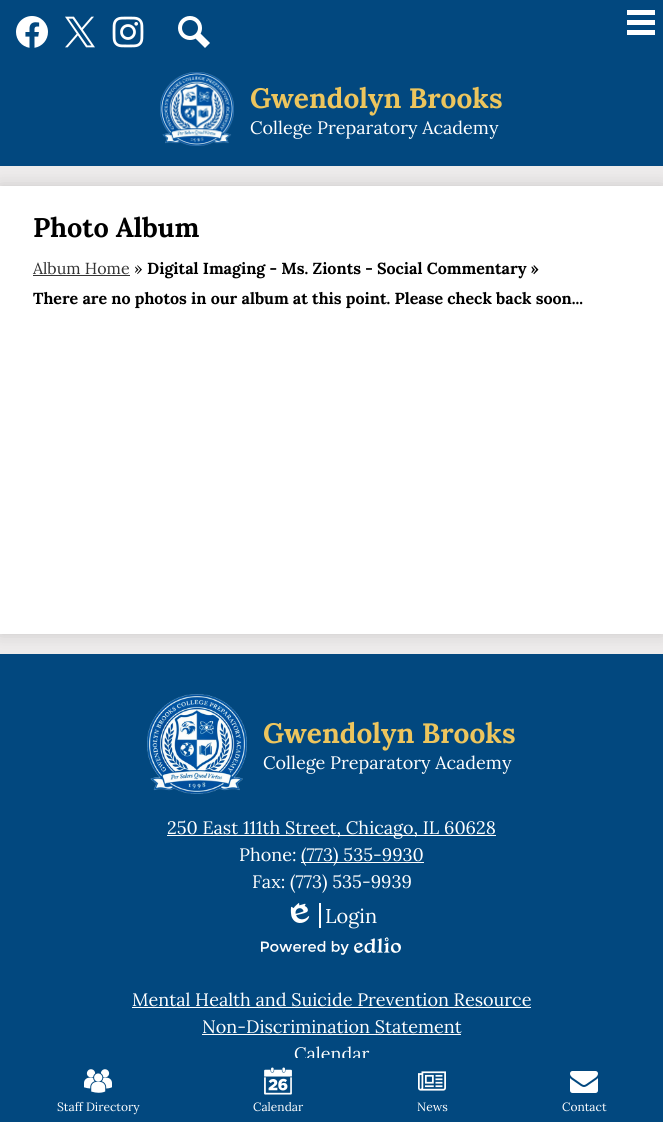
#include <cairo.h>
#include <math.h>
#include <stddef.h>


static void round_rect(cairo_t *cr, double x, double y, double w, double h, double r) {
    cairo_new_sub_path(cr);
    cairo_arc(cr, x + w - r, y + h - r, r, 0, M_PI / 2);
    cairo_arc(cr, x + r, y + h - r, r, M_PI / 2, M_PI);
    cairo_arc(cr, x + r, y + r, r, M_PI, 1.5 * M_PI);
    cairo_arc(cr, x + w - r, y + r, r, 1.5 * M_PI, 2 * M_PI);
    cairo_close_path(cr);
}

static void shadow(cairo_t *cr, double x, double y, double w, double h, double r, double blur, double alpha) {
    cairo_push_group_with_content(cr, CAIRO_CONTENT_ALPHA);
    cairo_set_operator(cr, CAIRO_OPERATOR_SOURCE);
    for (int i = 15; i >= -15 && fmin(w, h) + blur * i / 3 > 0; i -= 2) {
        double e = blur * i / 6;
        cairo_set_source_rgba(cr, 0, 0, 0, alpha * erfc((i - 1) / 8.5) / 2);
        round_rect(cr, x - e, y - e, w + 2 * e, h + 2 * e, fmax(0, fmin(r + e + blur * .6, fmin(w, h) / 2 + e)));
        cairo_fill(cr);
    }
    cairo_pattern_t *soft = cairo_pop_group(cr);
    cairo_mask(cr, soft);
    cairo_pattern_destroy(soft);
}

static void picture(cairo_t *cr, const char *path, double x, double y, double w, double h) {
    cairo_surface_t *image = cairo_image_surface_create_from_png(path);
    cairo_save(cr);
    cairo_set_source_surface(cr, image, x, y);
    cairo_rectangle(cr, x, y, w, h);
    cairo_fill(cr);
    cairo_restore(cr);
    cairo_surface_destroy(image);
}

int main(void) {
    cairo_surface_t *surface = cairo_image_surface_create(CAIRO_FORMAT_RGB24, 663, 1122);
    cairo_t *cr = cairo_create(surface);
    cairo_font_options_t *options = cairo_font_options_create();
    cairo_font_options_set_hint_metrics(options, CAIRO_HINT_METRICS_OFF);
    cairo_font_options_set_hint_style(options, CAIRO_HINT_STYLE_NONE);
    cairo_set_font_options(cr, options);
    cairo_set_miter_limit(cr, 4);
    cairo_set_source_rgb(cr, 0.929, 0.918, 0.918);
    cairo_paint(cr);
    cairo_set_source_rgb(cr, 0.008, 0.282, 0.498);
    cairo_rectangle(cr, 0, 654, 663, 404);
    cairo_fill(cr);
    cairo_set_source_rgb(cr, 0, 0, 0);
    shadow(cr, 0, 186, 663, 448, 0, 8, 0.15);
    cairo_set_source_rgb(cr, 0.008, 0.282, 0.498);
    cairo_rectangle(cr, 0, 0, 663, 166);
    cairo_fill(cr);
    picture(cr, "img1.png", 16, 16, 32, 32);
    picture(cr, "img2.png", 65, 16, 30, 32);
    picture(cr, "img3.png", 112, 16, 32, 32);
    picture(cr, "img4.png", 178, 16, 32, 32);
    cairo_set_source_rgb(cr, 1, 1, 1);
    cairo_rectangle(cr, 627, 10, 28, 5);
    cairo_fill(cr);
    cairo_rectangle(cr, 627, 20, 28, 5);
    cairo_fill(cr);
    cairo_rectangle(cr, 627, 30, 28, 5);
    cairo_fill(cr);
    picture(cr, "img5.png", 160, 72, 74, 74);
    cairo_select_font_face(cr, "Lora", CAIRO_FONT_SLANT_NORMAL, CAIRO_FONT_WEIGHT_BOLD);
    cairo_set_font_size(cr, 28);
    cairo_set_source_rgb(cr, 0.929, 0.773, 0.365);
    cairo_move_to(cr, 250, 108);
    cairo_show_text(cr, "Gwendolyn Brooks");
    cairo_select_font_face(cr, "Lora", CAIRO_FONT_SLANT_NORMAL, CAIRO_FONT_WEIGHT_NORMAL);
    cairo_set_font_size(cr, 18);
    cairo_set_source_rgb(cr, 1, 1, 1);
    cairo_move_to(cr, 250, 134);
    cairo_show_text(cr, "College Preparatory Academy");
    cairo_rectangle(cr, 0, 186, 663, 448);
    cairo_fill(cr);
    cairo_select_font_face(cr, "Lora", CAIRO_FONT_SLANT_NORMAL, CAIRO_FONT_WEIGHT_BOLD);
    cairo_set_font_size(cr, 27);
    cairo_set_source_rgb(cr, 0, 0, 0);
    cairo_move_to(cr, 33, 237);
    cairo_show_text(cr, "Photo Album");
    cairo_select_font_face(cr, "Lora", CAIRO_FONT_SLANT_NORMAL, CAIRO_FONT_WEIGHT_NORMAL);
    cairo_set_font_size(cr, 16);
    cairo_set_source_rgb(cr, 0.2, 0.2, 0.2);
    cairo_move_to(cr, 33, 274);
    cairo_show_text(cr, "Album Home");
    cairo_rectangle(cr, 33, 275, 97, 1);
    cairo_fill(cr);
    cairo_set_source_rgb(cr, 0, 0, 0);
    cairo_move_to(cr, 134, 274);
    cairo_show_text(cr, "»");
    cairo_select_font_face(cr, "Lora", CAIRO_FONT_SLANT_NORMAL, CAIRO_FONT_WEIGHT_BOLD);
    cairo_move_to(cr, 147, 274);
    cairo_show_text(cr, "Digital Imaging - Ms. Zionts - Social Commentary »");
    cairo_move_to(cr, 33, 304);
    cairo_show_text(cr, "There are no photos in our album at this point. Please check back soon...");
    picture(cr, "img6.png", 147, 694, 100, 100);
    cairo_set_font_size(cr, 28);
    cairo_set_source_rgb(cr, 0.929, 0.773, 0.365);
    cairo_move_to(cr, 263, 743);
    cairo_show_text(cr, "Gwendolyn Brooks");
    cairo_select_font_face(cr, "Lora", CAIRO_FONT_SLANT_NORMAL, CAIRO_FONT_WEIGHT_NORMAL);
    cairo_set_font_size(cr, 18);
    cairo_set_source_rgb(cr, 1, 1, 1);
    cairo_move_to(cr, 263, 769);
    cairo_show_text(cr, "College Preparatory Academy");
    cairo_rectangle(cr, 167, 835, 329, 1);
    cairo_fill(cr);
    cairo_move_to(cr, 167, 834);
    cairo_show_text(cr, "250 East 111th Street, Chicago, IL 60628");
    cairo_move_to(cr, 239, 861);
    cairo_show_text(cr, "Phone:");
    cairo_rectangle(cr, 301, 862, 123, 1);
    cairo_fill(cr);
    cairo_move_to(cr, 301, 861);
    cairo_show_text(cr, "(773) 535-9930");
    cairo_move_to(cr, 252, 888);
    cairo_show_text(cr, "Fax: (773) 535-9939");
    cairo_rectangle(cr, 319, 903, 2, 25);
    cairo_fill(cr);
    picture(cr, "img7.png", 290, 903, 20, 20);
    cairo_set_font_size(cr, 20);
    cairo_move_to(cr, 325, 923);
    cairo_show_text(cr, "Login");
    picture(cr, "img8.png", 261, 937, 140, 18);
    cairo_set_font_size(cr, 18);
    cairo_move_to(cr, 132, 1006);
    cairo_show_text(cr, "Mental Health and Suicide Prevention Resource");
    cairo_rectangle(cr, 132, 1007, 399, 1);
    cairo_fill(cr);
    cairo_move_to(cr, 202, 1033);
    cairo_show_text(cr, "Non-Discrimination Statement");
    cairo_rectangle(cr, 202, 1034, 259, 1);
    cairo_fill(cr);
    cairo_move_to(cr, 294, 1060);
    cairo_show_text(cr, "Calendar");
    cairo_set_source_rgb(cr, 0.008, 0.282, 0.498);
    cairo_rectangle(cr, 0, 1058, 663, 64);
    cairo_fill(cr);
    picture(cr, "img9.png", 84, 1069, 28, 24);
    cairo_set_font_size(cr, 12);
    cairo_set_source_rgb(cr, 1, 1, 1);
    cairo_move_to(cr, 57, 1111);
    cairo_show_text(cr, "Staff Directory");
    picture(cr, "img10.png", 264, 1067, 28, 28);
    cairo_move_to(cr, 253, 1111);
    cairo_show_text(cr, "Calendar");
    picture(cr, "img11.png", 418, 1071, 28, 20);
    cairo_move_to(cr, 417, 1111);
    cairo_show_text(cr, "News");
    picture(cr, "img12.png", 570, 1071, 28, 22);
    cairo_move_to(cr, 562, 1111);
    cairo_show_text(cr, "Contact");
    cairo_surface_write_to_png(surface, "page.png");
    cairo_font_options_destroy(options);
    cairo_destroy(cr);
    cairo_surface_destroy(surface);
    return 0;
}
